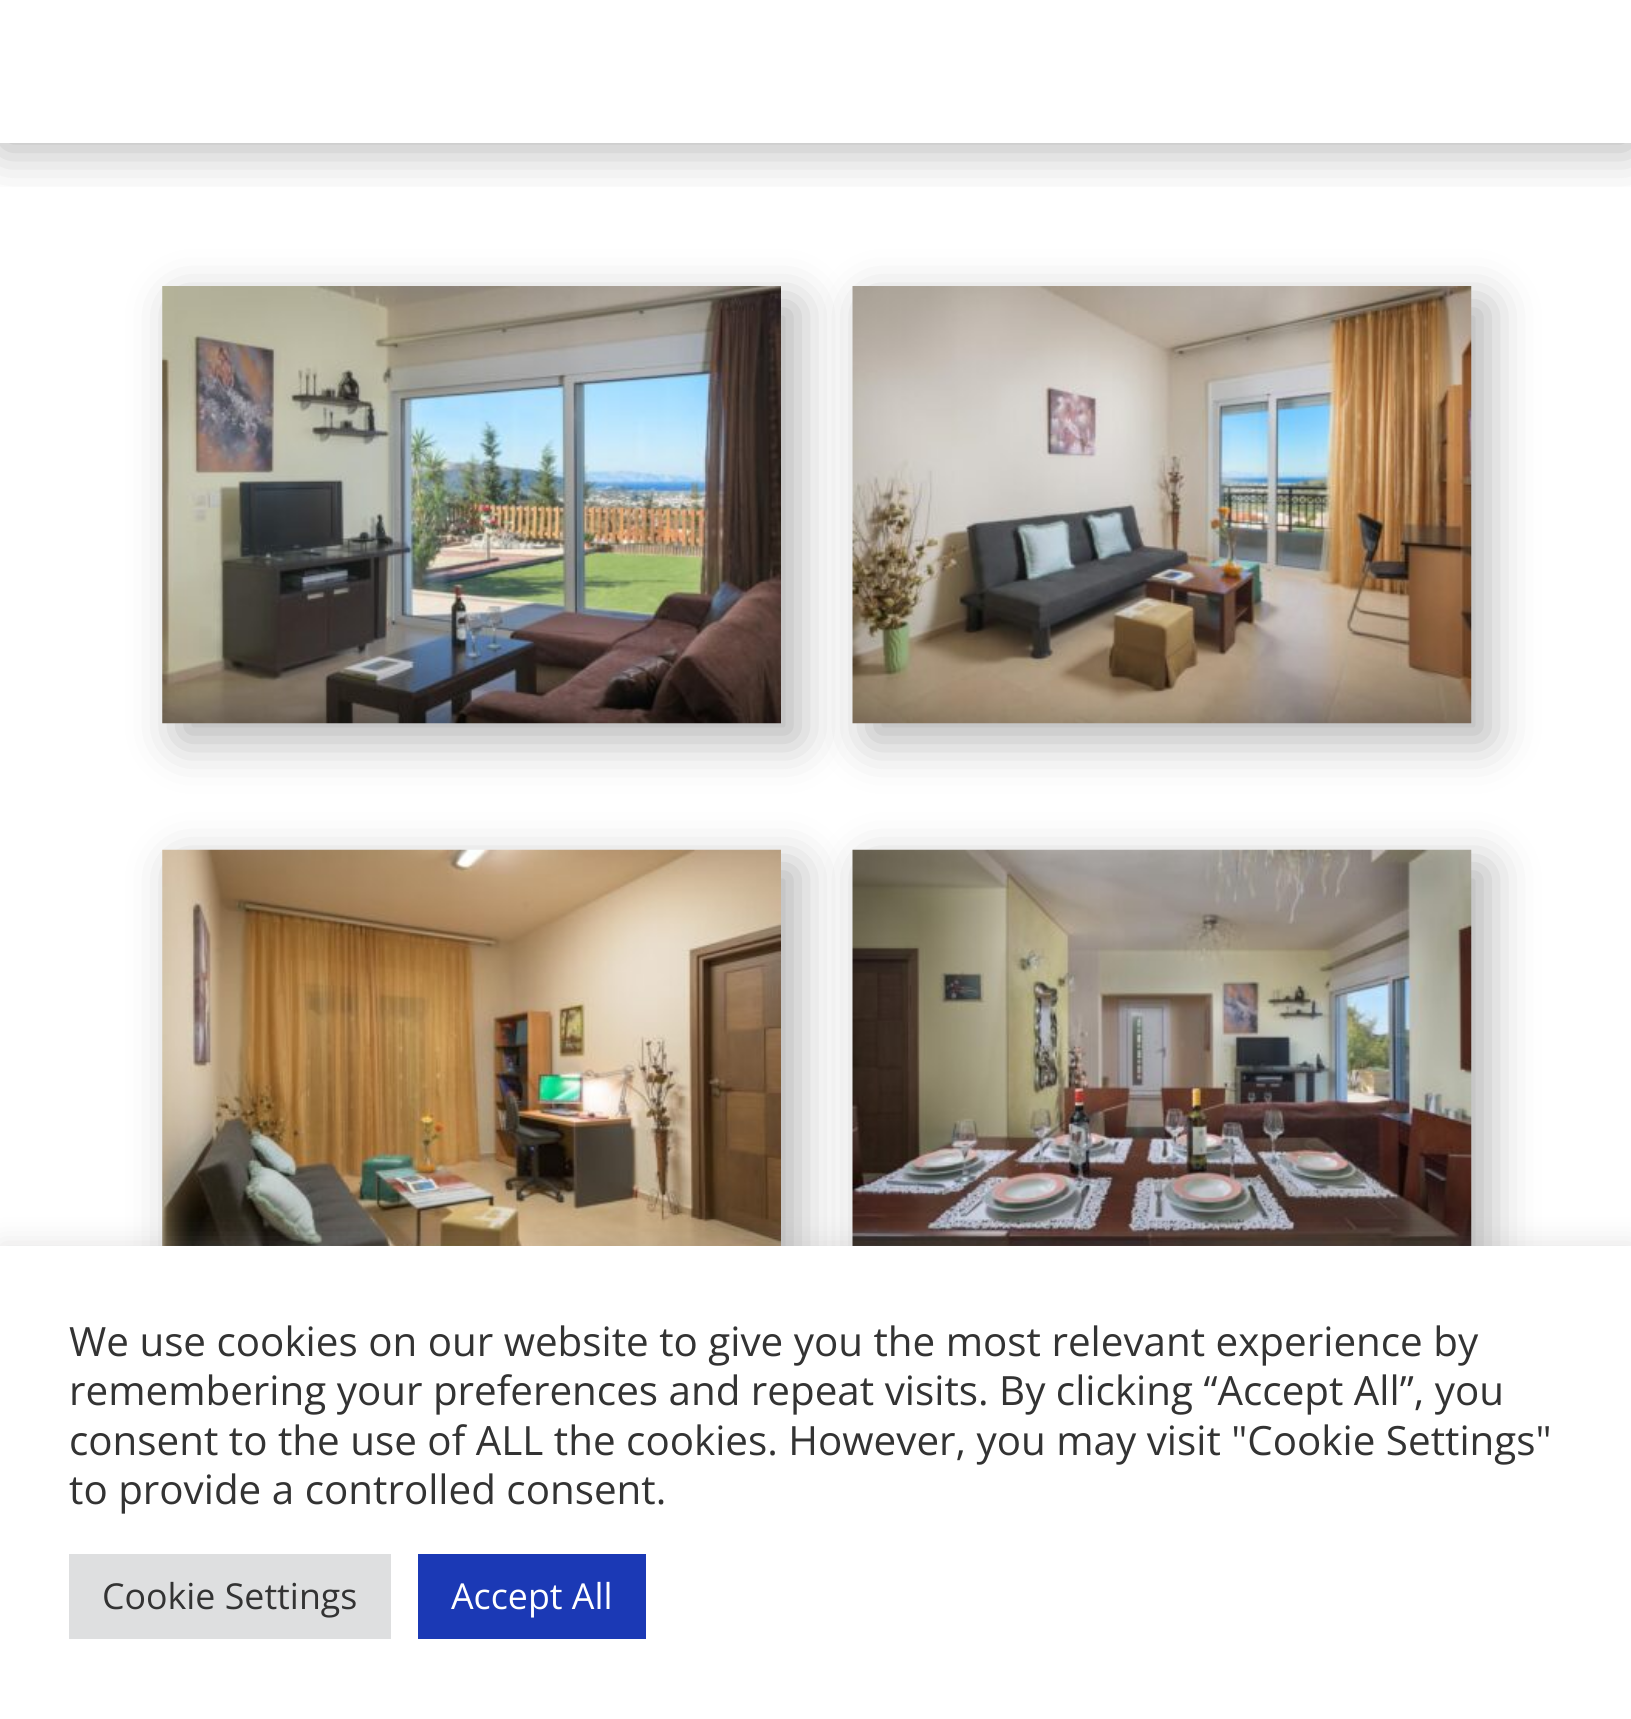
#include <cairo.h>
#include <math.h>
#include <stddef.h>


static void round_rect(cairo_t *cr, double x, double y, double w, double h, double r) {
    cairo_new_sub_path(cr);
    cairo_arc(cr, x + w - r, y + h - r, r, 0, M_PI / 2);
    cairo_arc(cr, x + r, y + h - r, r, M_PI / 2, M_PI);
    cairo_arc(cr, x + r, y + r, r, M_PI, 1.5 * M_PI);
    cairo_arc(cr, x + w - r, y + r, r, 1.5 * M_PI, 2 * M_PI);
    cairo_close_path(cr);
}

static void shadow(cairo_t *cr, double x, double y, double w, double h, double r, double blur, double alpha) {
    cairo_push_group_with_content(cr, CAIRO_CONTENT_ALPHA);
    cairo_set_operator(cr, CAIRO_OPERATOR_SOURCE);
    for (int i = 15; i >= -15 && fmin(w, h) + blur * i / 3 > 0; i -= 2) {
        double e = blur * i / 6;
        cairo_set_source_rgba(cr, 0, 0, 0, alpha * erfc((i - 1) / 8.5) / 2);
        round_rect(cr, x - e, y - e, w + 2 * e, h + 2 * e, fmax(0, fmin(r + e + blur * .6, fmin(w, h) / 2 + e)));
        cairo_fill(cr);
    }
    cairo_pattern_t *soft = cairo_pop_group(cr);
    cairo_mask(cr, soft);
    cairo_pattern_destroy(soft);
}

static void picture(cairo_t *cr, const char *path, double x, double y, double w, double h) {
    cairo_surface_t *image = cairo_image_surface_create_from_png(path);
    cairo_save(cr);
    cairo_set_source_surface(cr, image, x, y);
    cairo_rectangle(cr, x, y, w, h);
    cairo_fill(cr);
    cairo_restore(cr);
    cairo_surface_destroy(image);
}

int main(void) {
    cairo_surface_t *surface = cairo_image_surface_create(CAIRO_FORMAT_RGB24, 1631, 1719);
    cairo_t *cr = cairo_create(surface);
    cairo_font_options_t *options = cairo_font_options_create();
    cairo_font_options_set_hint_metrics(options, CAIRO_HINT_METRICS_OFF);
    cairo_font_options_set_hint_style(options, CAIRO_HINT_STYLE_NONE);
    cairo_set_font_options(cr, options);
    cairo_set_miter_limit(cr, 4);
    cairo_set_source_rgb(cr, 1, 1, 1);
    cairo_paint(cr);
    cairo_save(cr);
    cairo_rectangle(cr, 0, 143, 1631, 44);
    cairo_clip(cr);
    cairo_set_source_rgb(cr, 0, 0, 0);
    shadow(cr, 0, 6, 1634, 143, 0, 25, 0.3);
    cairo_restore(cr);
    cairo_set_source_rgb(cr, 0, 0, 0);
    shadow(cr, 179, 303, 619, 437, 0, 25, 0.3);
    picture(cr, "img1.png", 162, 286, 619, 438);
    shadow(cr, 869, 303, 619, 437, 0, 25, 0.3);
    picture(cr, "img2.png", 852, 286, 620, 438);
    shadow(cr, 179, 866, 619, 438, 0, 25, 0.3);
    picture(cr, "img3.png", 162, 849, 619, 397);
    shadow(cr, 869, 866, 619, 438, 0, 25, 0.3);
    picture(cr, "img4.png", 852, 849, 620, 397);
    cairo_set_source_rgb(cr, 0.675, 0.671, 0.671);
    shadow(cr, 0, 1243, 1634, 476, 0, 14, 0.3);
    cairo_set_source_rgb(cr, 1, 1, 1);
    cairo_rectangle(cr, 0, 1246, 1631, 473);
    cairo_fill(cr);
    cairo_select_font_face(cr, "Open Sans", CAIRO_FONT_SLANT_NORMAL, CAIRO_FONT_WEIGHT_NORMAL);
    cairo_set_font_size(cr, 40.35);
    cairo_set_source_rgb(cr, 0.2, 0.2, 0.2);
    cairo_move_to(cr, 69, 1356);
    cairo_show_text(cr, "We use cookies on our website to give you the most relevant experience by");
    cairo_move_to(cr, 69, 1405);
    cairo_show_text(cr, "remembering your preferences and repeat visits. By clicking “Accept All”, you");
    cairo_move_to(cr, 69, 1455);
    cairo_show_text(cr, "consent to the use of ALL the cookies. However, you may visit \"Cookie Settings\"");
    cairo_move_to(cr, 69, 1504);
    cairo_show_text(cr, "to provide a controlled consent.");
    cairo_set_source_rgb(cr, 0.871, 0.875, 0.878);
    cairo_rectangle(cr, 69, 1554, 322, 85);
    cairo_fill(cr);
    cairo_set_font_size(cr, 35.75);
    cairo_set_source_rgb(cr, 0.2, 0.2, 0.2);
    cairo_move_to(cr, 102, 1609);
    cairo_show_text(cr, "Cookie Settings");
    cairo_set_source_rgb(cr, 0.106, 0.224, 0.71);
    cairo_rectangle(cr, 418, 1554, 228, 85);
    cairo_fill(cr);
    cairo_set_source_rgb(cr, 1, 1, 1);
    cairo_move_to(cr, 451, 1609);
    cairo_show_text(cr, "Accept All");
    cairo_surface_write_to_png(surface, "page.png");
    cairo_font_options_destroy(options);
    cairo_destroy(cr);
    cairo_surface_destroy(surface);
    return 0;
}
